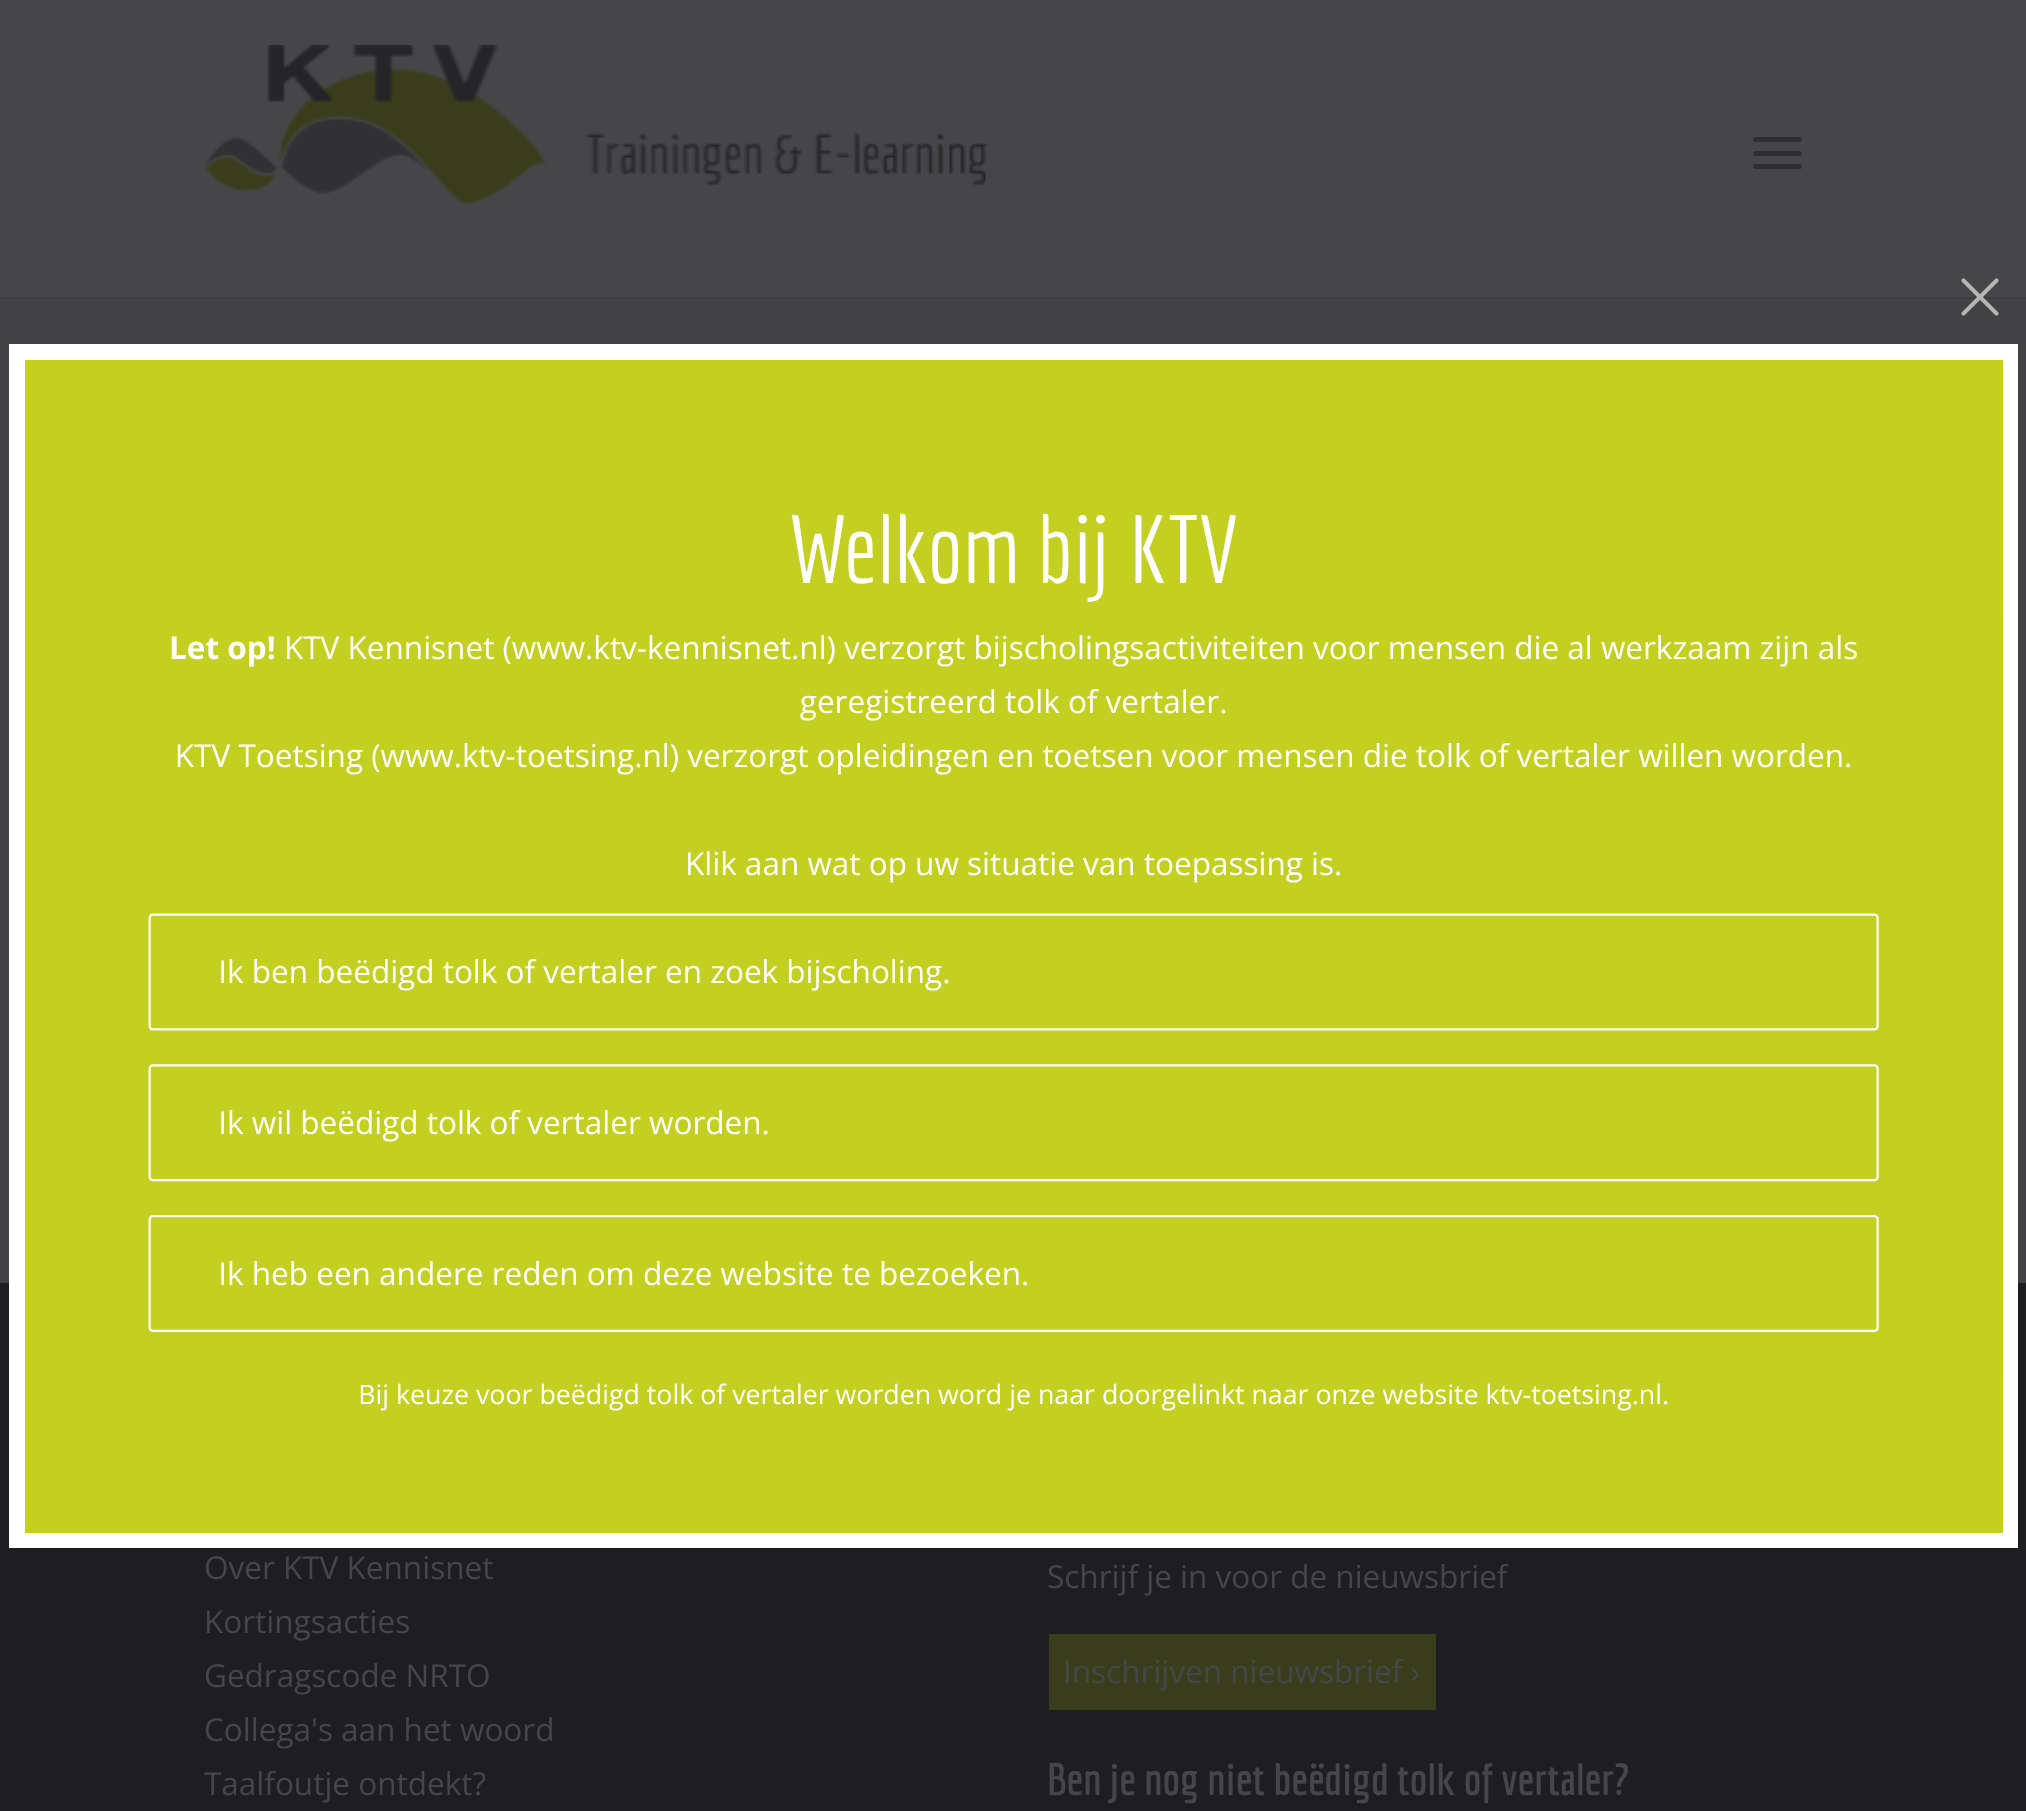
#include <cairo.h>
#include <math.h>
#include <stddef.h>


static void round_rect(cairo_t *cr, double x, double y, double w, double h, double r) {
    cairo_new_sub_path(cr);
    cairo_arc(cr, x + w - r, y + h - r, r, 0, M_PI / 2);
    cairo_arc(cr, x + r, y + h - r, r, M_PI / 2, M_PI);
    cairo_arc(cr, x + r, y + r, r, M_PI, 1.5 * M_PI);
    cairo_arc(cr, x + w - r, y + r, r, 1.5 * M_PI, 2 * M_PI);
    cairo_close_path(cr);
}

static void picture(cairo_t *cr, const char *path, double x, double y, double w, double h) {
    cairo_surface_t *image = cairo_image_surface_create_from_png(path);
    cairo_save(cr);
    cairo_set_source_surface(cr, image, x, y);
    cairo_rectangle(cr, x, y, w, h);
    cairo_fill(cr);
    cairo_restore(cr);
    cairo_surface_destroy(image);
}

int main(void) {
    cairo_surface_t *surface = cairo_image_surface_create(CAIRO_FORMAT_RGB24, 2026, 1811);
    cairo_t *cr = cairo_create(surface);
    cairo_font_options_t *options = cairo_font_options_create();
    cairo_font_options_set_hint_metrics(options, CAIRO_HINT_METRICS_OFF);
    cairo_font_options_set_hint_style(options, CAIRO_HINT_STYLE_NONE);
    cairo_set_font_options(cr, options);
    cairo_set_miter_limit(cr, 4);
    cairo_set_source_rgb(cr, 0.259, 0.259, 0.271);
    cairo_paint(cr);
    cairo_set_source_rgb(cr, 0.275, 0.275, 0.286);
    cairo_rectangle(cr, 0, 0, 2026, 297);
    cairo_fill(cr);
    cairo_set_source_rgb(cr, 0.247, 0.247, 0.255);
    cairo_rectangle(cr, 0, 297, 2026, 2);
    cairo_fill(cr);
    picture(cr, "img1.png", 204, 45, 784, 161);
    cairo_set_source_rgb(cr, 0.18, 0.18, 0.192);
    round_rect(cr, 1753, 137, 49, 5, 2.5);
    cairo_fill(cr);
    round_rect(cr, 1753, 151, 49, 5, 2.5);
    cairo_fill(cr);
    round_rect(cr, 1753, 164, 49, 5, 2.5);
    cairo_fill(cr);
    cairo_set_source_rgb(cr, 0.118, 0.114, 0.129);
    cairo_rectangle(cr, 0, 1283, 2026, 528);
    cairo_fill(cr);
    cairo_set_source_rgb(cr, 1, 1, 1);
    cairo_rectangle(cr, 9, 344, 2009, 1204);
    cairo_fill(cr);
    cairo_new_path(cr);
    cairo_move_to(cr, 1996.5, 313.5);
    cairo_line_to(cr, 1963.5, 280.5);
    cairo_move_to(cr, 1996.5, 280.5);
    cairo_line_to(cr, 1963.5, 313.5);
    cairo_set_source_rgba(cr, 0.859, 0.859, 0.859, 0.75);
    cairo_set_line_width(cr, 4.1);
    cairo_set_line_cap(cr, CAIRO_LINE_CAP_ROUND);
    cairo_set_line_join(cr, CAIRO_LINE_JOIN_ROUND);
    cairo_stroke(cr);
    picture(cr, "img2.png", 25, 360, 1978, 1173);
    cairo_select_font_face(cr, "Open Sans", CAIRO_FONT_SLANT_NORMAL, CAIRO_FONT_WEIGHT_NORMAL);
    cairo_set_font_size(cr, 31.5);
    cairo_set_source_rgb(cr, 0.275, 0.275, 0.286);
    cairo_move_to(cr, 204, 1579);
    cairo_show_text(cr, "Over KTV Kennisnet");
    cairo_move_to(cr, 204, 1633);
    cairo_show_text(cr, "Kortingsacties");
    cairo_move_to(cr, 204, 1687);
    cairo_show_text(cr, "Gedragscode NRTO");
    cairo_move_to(cr, 204, 1741);
    cairo_show_text(cr, "Collega's aan het woord");
    cairo_move_to(cr, 204, 1795);
    cairo_show_text(cr, "Taalfoutje ontdekt?");
    cairo_move_to(cr, 1047, 1588);
    cairo_show_text(cr, "Schrijf je in voor de nieuwsbrief");
    cairo_set_source_rgb(cr, 0.227, 0.239, 0.11);
    cairo_rectangle(cr, 1049, 1634, 387, 76);
    cairo_fill(cr);
    cairo_set_source_rgb(cr, 0.275, 0.275, 0.286);
    cairo_move_to(cr, 1063, 1683);
    cairo_show_text(cr, "Inschrijven nieuwsbrief ›");
    cairo_select_font_face(cr, "Economica", CAIRO_FONT_SLANT_NORMAL, CAIRO_FONT_WEIGHT_BOLD);
    cairo_set_font_size(cr, 44.1);
    cairo_move_to(cr, 1047, 1795);
    cairo_show_text(cr, "Ben je nog niet beëdigd tolk of vertaler?");
    cairo_surface_write_to_png(surface, "page.png");
    cairo_font_options_destroy(options);
    cairo_destroy(cr);
    cairo_surface_destroy(surface);
    return 0;
}
